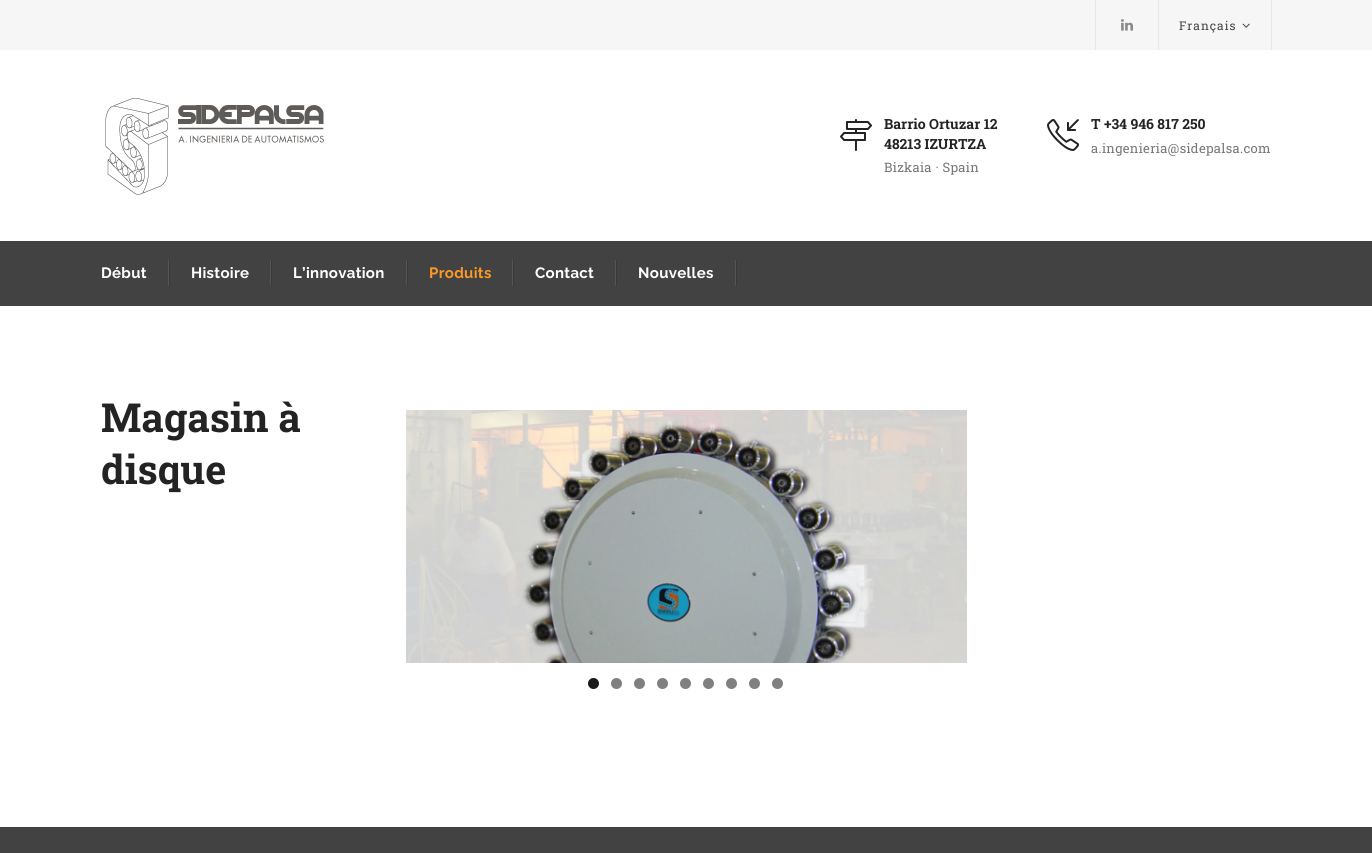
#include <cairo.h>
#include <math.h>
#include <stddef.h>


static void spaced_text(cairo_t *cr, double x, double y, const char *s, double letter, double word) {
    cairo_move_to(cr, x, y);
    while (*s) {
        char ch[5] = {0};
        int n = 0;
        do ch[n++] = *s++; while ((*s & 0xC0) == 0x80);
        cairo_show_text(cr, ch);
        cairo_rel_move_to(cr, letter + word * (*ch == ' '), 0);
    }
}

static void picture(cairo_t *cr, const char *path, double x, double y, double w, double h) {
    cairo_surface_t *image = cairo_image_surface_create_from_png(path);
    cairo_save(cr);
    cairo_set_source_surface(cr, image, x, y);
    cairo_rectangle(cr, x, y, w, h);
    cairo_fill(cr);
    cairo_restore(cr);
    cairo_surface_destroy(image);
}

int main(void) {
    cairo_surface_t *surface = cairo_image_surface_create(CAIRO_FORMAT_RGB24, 1372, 853);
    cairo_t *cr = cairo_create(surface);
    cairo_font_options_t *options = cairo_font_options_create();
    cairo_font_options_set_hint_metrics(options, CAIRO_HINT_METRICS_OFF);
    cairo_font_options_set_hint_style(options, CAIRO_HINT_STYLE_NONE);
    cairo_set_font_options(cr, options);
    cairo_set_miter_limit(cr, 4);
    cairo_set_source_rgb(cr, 1, 1, 1);
    cairo_paint(cr);
    cairo_set_source_rgb(cr, 0.961, 0.961, 0.961);
    cairo_rectangle(cr, 0, 0, 1372, 50);
    cairo_fill(cr);
    cairo_set_source_rgb(cr, 0.906, 0.906, 0.906);
    cairo_rectangle(cr, 1158, 0, 1, 50);
    cairo_fill(cr);
    cairo_rectangle(cr, 1095, 0, 1, 50);
    cairo_fill(cr);
    picture(cr, "img1.png", 1121, 19, 12, 12);
    cairo_rectangle(cr, 1271, 0, 1, 50);
    cairo_fill(cr);
    cairo_select_font_face(cr, "Roboto Slab", CAIRO_FONT_SLANT_NORMAL, CAIRO_FONT_WEIGHT_NORMAL);
    cairo_set_font_size(cr, 12);
    cairo_set_source_rgb(cr, 0.267, 0.267, 0.267);
    spaced_text(cr, 1179, 30, "Français", 1, 0);
    picture(cr, "img2.png", 1242, 23, 8, 5);
    picture(cr, "img3.png", 105, 98, 219, 97);
    picture(cr, "img4.png", 840, 119, 32, 32);
    cairo_select_font_face(cr, "Roboto Slab", CAIRO_FONT_SLANT_NORMAL, CAIRO_FONT_WEIGHT_BOLD);
    cairo_set_font_size(cr, 14);
    cairo_set_source_rgb(cr, 0.137, 0.137, 0.137);
    cairo_move_to(cr, 884, 129);
    cairo_show_text(cr, "Barrio Ortuzar 12");
    cairo_move_to(cr, 884, 149);
    cairo_show_text(cr, "48213 IZURTZA");
    cairo_select_font_face(cr, "Roboto Slab", CAIRO_FONT_SLANT_NORMAL, CAIRO_FONT_WEIGHT_NORMAL);
    cairo_set_font_size(cr, 13);
    cairo_set_source_rgb(cr, 0.467, 0.467, 0.467);
    spaced_text(cr, 884, 172, "Bizkaia · Spain", 0.3, 0);
    picture(cr, "img5.png", 1047, 119, 32, 32);
    cairo_select_font_face(cr, "Roboto Slab", CAIRO_FONT_SLANT_NORMAL, CAIRO_FONT_WEIGHT_BOLD);
    cairo_set_font_size(cr, 14);
    cairo_set_source_rgb(cr, 0.137, 0.137, 0.137);
    cairo_move_to(cr, 1091, 129);
    cairo_show_text(cr, "T +34 946 817 250");
    cairo_select_font_face(cr, "Roboto Slab", CAIRO_FONT_SLANT_NORMAL, CAIRO_FONT_WEIGHT_NORMAL);
    cairo_set_font_size(cr, 13);
    cairo_set_source_rgb(cr, 0.467, 0.467, 0.467);
    spaced_text(cr, 1091, 153, "a.ingenieria@sidepalsa.com", 0.3, 0);
    cairo_set_source_rgb(cr, 0.259, 0.259, 0.259);
    cairo_rectangle(cr, 0, 241, 1372, 65);
    cairo_fill(cr);
    cairo_select_font_face(cr, "Raleway", CAIRO_FONT_SLANT_NORMAL, CAIRO_FONT_WEIGHT_BOLD);
    cairo_set_font_size(cr, 15);
    cairo_set_source_rgb(cr, 1, 1, 1);
    spaced_text(cr, 101, 278, "Début", 0.3, 0);
    cairo_set_source_rgb(cr, 0.224, 0.224, 0.224);
    cairo_rectangle(cr, 169, 260, 1, 26);
    cairo_fill(cr);
    cairo_set_source_rgb(cr, 0.333, 0.333, 0.333);
    cairo_rectangle(cr, 168, 260, 1, 26);
    cairo_fill(cr);
    cairo_set_source_rgb(cr, 1, 1, 1);
    spaced_text(cr, 191, 278, "Histoire", 0.3, 0);
    cairo_set_source_rgb(cr, 0.224, 0.224, 0.224);
    cairo_rectangle(cr, 271, 260, 1, 26);
    cairo_fill(cr);
    cairo_set_source_rgb(cr, 0.333, 0.333, 0.333);
    cairo_rectangle(cr, 270, 260, 1, 26);
    cairo_fill(cr);
    cairo_set_source_rgb(cr, 1, 1, 1);
    spaced_text(cr, 293, 278, "L’innovation", 0.3, 0);
    cairo_set_source_rgb(cr, 0.224, 0.224, 0.224);
    cairo_rectangle(cr, 407, 260, 1, 26);
    cairo_fill(cr);
    cairo_set_source_rgb(cr, 0.333, 0.333, 0.333);
    cairo_rectangle(cr, 406, 260, 1, 26);
    cairo_fill(cr);
    cairo_set_source_rgb(cr, 0.98, 0.6, 0.157);
    spaced_text(cr, 429, 278, "Produits", 0.3, 0);
    cairo_set_source_rgb(cr, 0.224, 0.224, 0.224);
    cairo_rectangle(cr, 513, 260, 1, 26);
    cairo_fill(cr);
    cairo_set_source_rgb(cr, 0.333, 0.333, 0.333);
    cairo_rectangle(cr, 512, 260, 1, 26);
    cairo_fill(cr);
    cairo_set_source_rgb(cr, 1, 1, 1);
    spaced_text(cr, 535, 278, "Contact", 0.3, 0);
    cairo_set_source_rgb(cr, 0.224, 0.224, 0.224);
    cairo_rectangle(cr, 616, 260, 1, 26);
    cairo_fill(cr);
    cairo_set_source_rgb(cr, 0.333, 0.333, 0.333);
    cairo_rectangle(cr, 615, 260, 1, 26);
    cairo_fill(cr);
    cairo_set_source_rgb(cr, 1, 1, 1);
    spaced_text(cr, 638, 278, "Nouvelles", 0.3, 0);
    cairo_set_source_rgb(cr, 0.224, 0.224, 0.224);
    cairo_rectangle(cr, 736, 260, 1, 26);
    cairo_fill(cr);
    cairo_set_source_rgb(cr, 0.333, 0.333, 0.333);
    cairo_rectangle(cr, 735, 260, 1, 26);
    cairo_fill(cr);
    cairo_select_font_face(cr, "Roboto Slab", CAIRO_FONT_SLANT_NORMAL, CAIRO_FONT_WEIGHT_BOLD);
    cairo_set_font_size(cr, 40);
    cairo_set_source_rgb(cr, 0.137, 0.137, 0.137);
    cairo_move_to(cr, 101, 432);
    cairo_show_text(cr, "Magasin à");
    cairo_move_to(cr, 101, 484);
    cairo_show_text(cr, "disque");
    picture(cr, "img6.png", 406, 410, 561, 253);
    cairo_set_source_rgb(cr, 0.102, 0.102, 0.102);
    cairo_arc(cr, 593.5, 683.5, 5.5, 0, 2 * M_PI);
    cairo_fill(cr);
    cairo_set_source_rgb(cr, 0.502, 0.502, 0.502);
    cairo_arc(cr, 616.5, 683.5, 5.5, 0, 2 * M_PI);
    cairo_fill(cr);
    cairo_arc(cr, 639.5, 683.5, 5.5, 0, 2 * M_PI);
    cairo_fill(cr);
    cairo_arc(cr, 662.5, 683.5, 5.5, 0, 2 * M_PI);
    cairo_fill(cr);
    cairo_arc(cr, 685.5, 683.5, 5.5, 0, 2 * M_PI);
    cairo_fill(cr);
    cairo_arc(cr, 708.5, 683.5, 5.5, 0, 2 * M_PI);
    cairo_fill(cr);
    cairo_arc(cr, 731.5, 683.5, 5.5, 0, 2 * M_PI);
    cairo_fill(cr);
    cairo_arc(cr, 754.5, 683.5, 5.5, 0, 2 * M_PI);
    cairo_fill(cr);
    cairo_arc(cr, 777.5, 683.5, 5.5, 0, 2 * M_PI);
    cairo_fill(cr);
    cairo_set_source_rgb(cr, 0.259, 0.259, 0.259);
    cairo_rectangle(cr, 0, 827, 1372, 26);
    cairo_fill(cr);
    cairo_surface_write_to_png(surface, "page.png");
    cairo_font_options_destroy(options);
    cairo_destroy(cr);
    cairo_surface_destroy(surface);
    return 0;
}
